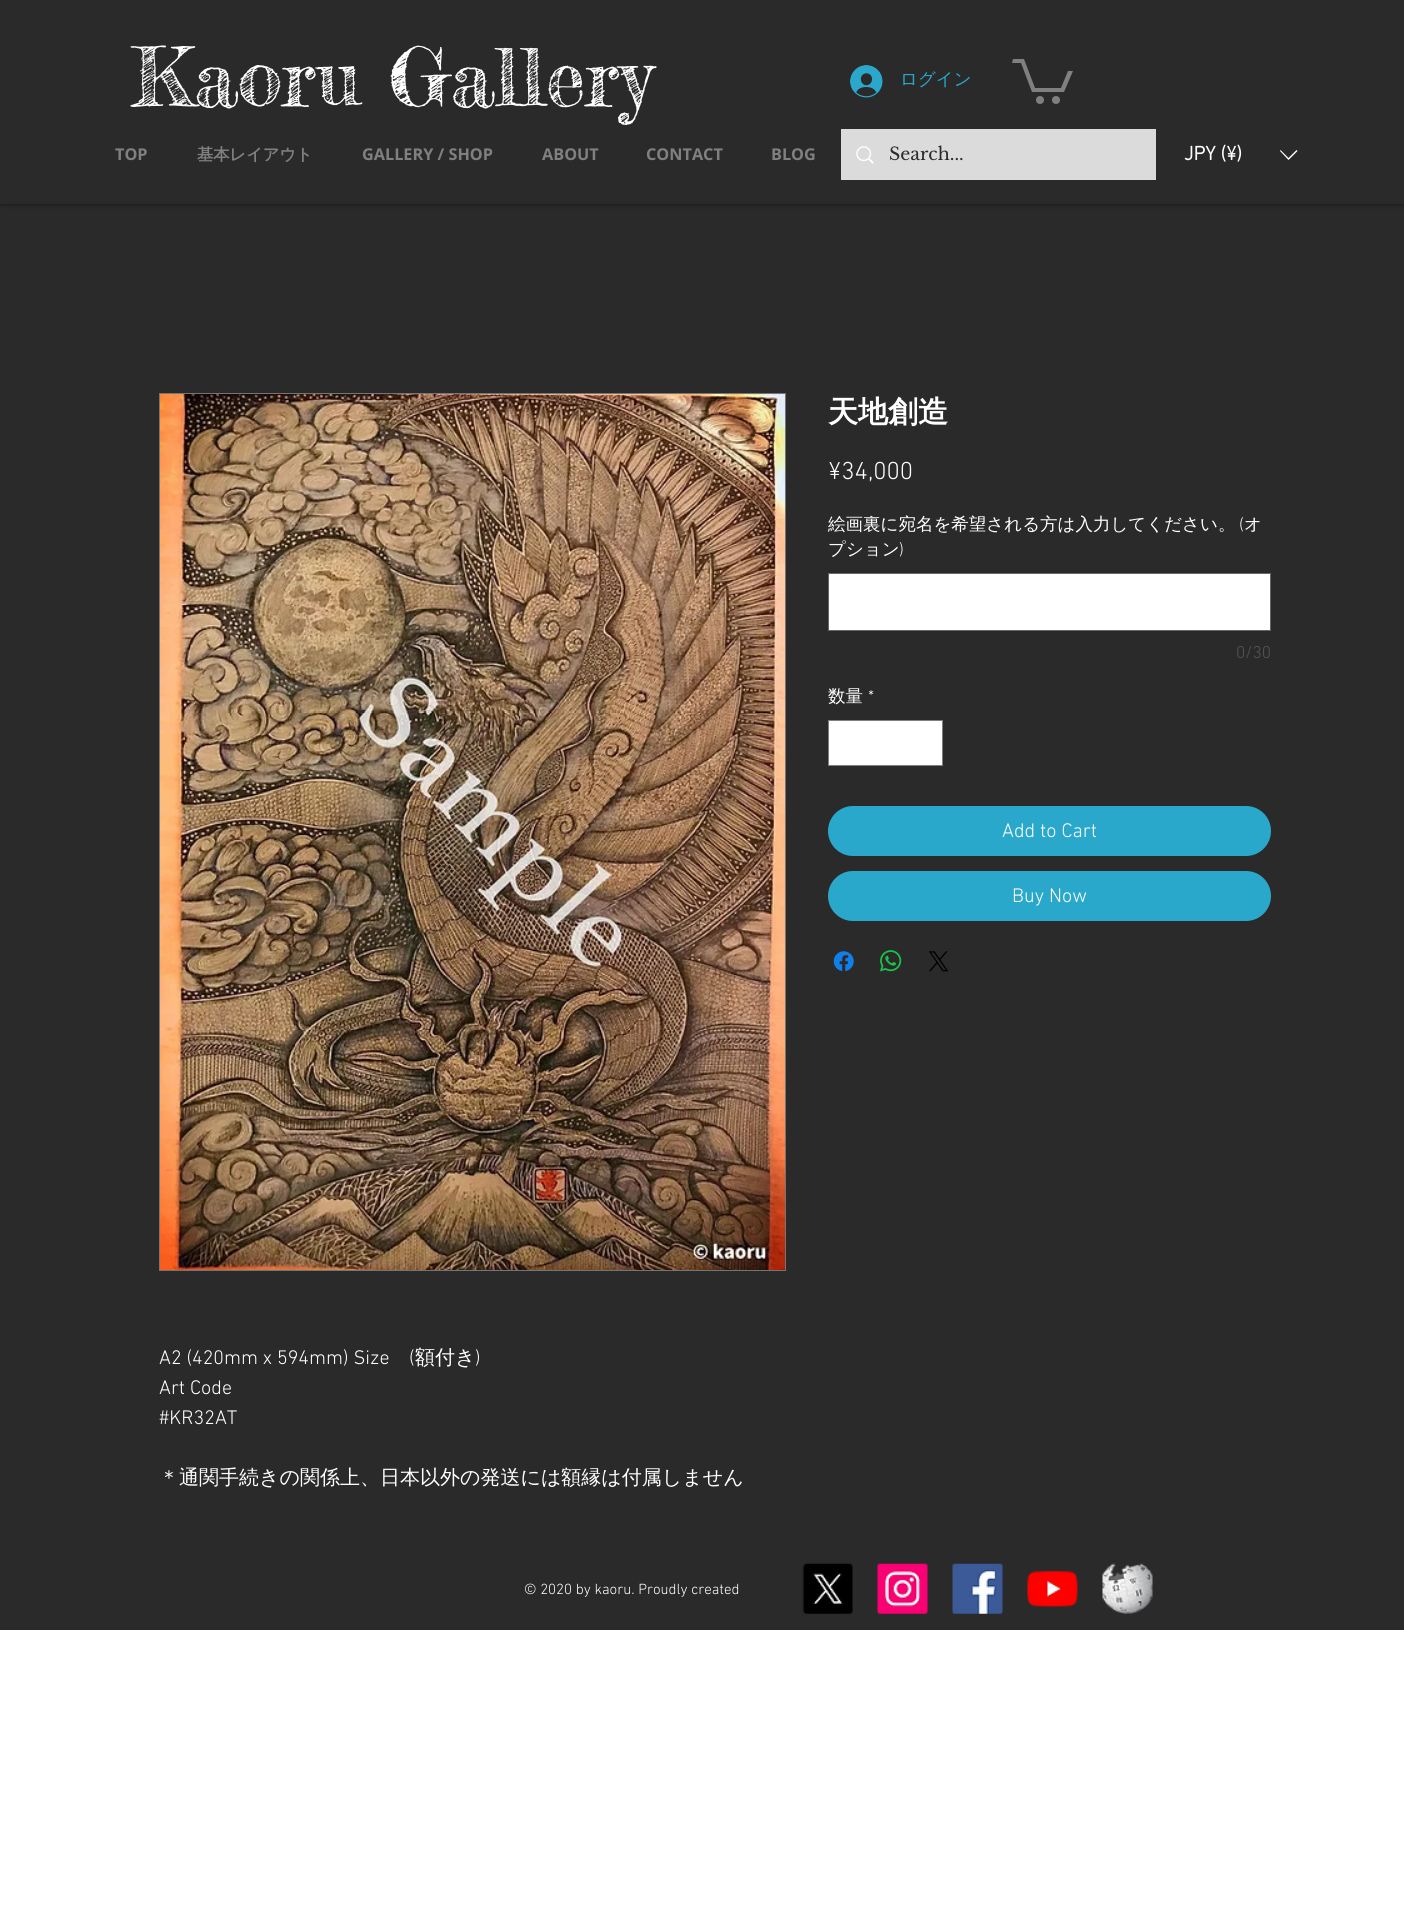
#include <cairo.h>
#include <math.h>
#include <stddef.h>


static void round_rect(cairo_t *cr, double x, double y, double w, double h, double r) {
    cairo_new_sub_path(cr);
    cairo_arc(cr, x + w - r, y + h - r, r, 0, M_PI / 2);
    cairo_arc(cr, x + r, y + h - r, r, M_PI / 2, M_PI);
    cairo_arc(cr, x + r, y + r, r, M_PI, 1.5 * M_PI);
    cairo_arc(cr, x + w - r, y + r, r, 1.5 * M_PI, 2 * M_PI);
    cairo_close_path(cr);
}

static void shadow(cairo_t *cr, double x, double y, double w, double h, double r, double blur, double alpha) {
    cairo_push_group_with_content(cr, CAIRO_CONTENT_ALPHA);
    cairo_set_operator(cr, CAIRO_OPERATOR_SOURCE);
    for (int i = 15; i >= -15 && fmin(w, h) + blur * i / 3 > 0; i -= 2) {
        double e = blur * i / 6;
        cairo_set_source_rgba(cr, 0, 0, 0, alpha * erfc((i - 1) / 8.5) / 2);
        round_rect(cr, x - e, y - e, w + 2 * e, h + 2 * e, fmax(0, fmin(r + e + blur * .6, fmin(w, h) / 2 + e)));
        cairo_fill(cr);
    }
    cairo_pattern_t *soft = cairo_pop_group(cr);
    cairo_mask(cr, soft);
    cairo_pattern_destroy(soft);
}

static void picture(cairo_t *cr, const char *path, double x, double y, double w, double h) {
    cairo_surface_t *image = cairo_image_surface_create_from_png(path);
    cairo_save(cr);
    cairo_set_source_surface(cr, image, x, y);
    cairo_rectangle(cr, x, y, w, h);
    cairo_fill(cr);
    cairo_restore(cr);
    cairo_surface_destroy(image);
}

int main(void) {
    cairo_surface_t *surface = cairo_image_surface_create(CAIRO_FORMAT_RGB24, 1404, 1914);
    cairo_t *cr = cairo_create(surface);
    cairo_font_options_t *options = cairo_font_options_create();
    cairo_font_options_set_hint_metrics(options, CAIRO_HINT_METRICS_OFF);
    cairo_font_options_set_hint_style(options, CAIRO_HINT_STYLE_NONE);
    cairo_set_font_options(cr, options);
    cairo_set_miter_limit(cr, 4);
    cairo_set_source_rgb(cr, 1, 1, 1);
    cairo_paint(cr);
    cairo_set_source_rgb(cr, 0.165, 0.165, 0.165);
    cairo_rectangle(cr, 0, 204, 1404, 1426);
    cairo_fill(cr);
    cairo_set_source_rgb(cr, 0, 0, 0);
    shadow(cr, 0, 0, 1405, 204, 0, 3, 0.5);
    cairo_set_source_rgb(cr, 0.165, 0.165, 0.165);
    cairo_rectangle(cr, 0, 0, 1404, 204);
    cairo_fill(cr);
    cairo_select_font_face(cr, "Fredericka the Great", CAIRO_FONT_SLANT_NORMAL, CAIRO_FONT_WEIGHT_NORMAL);
    cairo_set_font_size(cr, 80);
    cairo_set_source_rgb(cr, 1, 1, 1);
    cairo_move_to(cr, 132, 106);
    cairo_show_text(cr, "Kaoru Gallery");
    picture(cr, "img1.png", 850, 65, 33, 33);
    cairo_select_font_face(cr, "WenQuanYi Zen Hei Medium", CAIRO_FONT_SLANT_NORMAL, CAIRO_FONT_WEIGHT_NORMAL);
    cairo_set_font_size(cr, 17.5);
    cairo_set_source_rgb(cr, 0.165, 0.659, 0.8);
    cairo_move_to(cr, 900, 85);
    cairo_show_text(cr, "ログイン");
    cairo_set_source_rgb(cr, 0.502, 0.502, 0.502);
    cairo_new_path(cr);
    cairo_move_to(cr, 1073, 71);
    cairo_line_to(cr, 1064, 92);
    cairo_line_to(cr, 1032, 92);
    cairo_line_to(cr, 1021, 63);
    cairo_line_to(cr, 1012, 63);
    cairo_line_to(cr, 1013, 59);
    cairo_line_to(cr, 1024, 59);
    cairo_line_to(cr, 1035, 88);
    cairo_line_to(cr, 1061, 88);
    cairo_line_to(cr, 1068, 71);
    cairo_fill(cr);
    cairo_arc(cr, 1056, 100, 4, 0, 2 * M_PI);
    cairo_fill(cr);
    cairo_arc(cr, 1040, 100, 4, 0, 2 * M_PI);
    cairo_fill(cr);
    cairo_select_font_face(cr, "Open Sans", CAIRO_FONT_SLANT_NORMAL, CAIRO_FONT_WEIGHT_BOLD);
    cairo_set_font_size(cr, 16.25);
    cairo_move_to(cr, 115, 160);
    cairo_show_text(cr, "TOP");
    cairo_select_font_face(cr, "WenQuanYi Zen Hei", CAIRO_FONT_SLANT_NORMAL, CAIRO_FONT_WEIGHT_BOLD);
    cairo_move_to(cr, 197, 160);
    cairo_show_text(cr, "基本レイアウト");
    cairo_select_font_face(cr, "Open Sans", CAIRO_FONT_SLANT_NORMAL, CAIRO_FONT_WEIGHT_BOLD);
    cairo_move_to(cr, 362, 160);
    cairo_show_text(cr, "GALLERY / SHOP");
    cairo_move_to(cr, 542, 160);
    cairo_show_text(cr, "ABOUT");
    cairo_move_to(cr, 646, 160);
    cairo_show_text(cr, "CONTACT");
    cairo_move_to(cr, 771, 160);
    cairo_show_text(cr, "BLOG");
    cairo_set_source_rgb(cr, 0.859, 0.859, 0.859);
    cairo_rectangle(cr, 841, 129, 315, 51);
    cairo_fill(cr);
    picture(cr, "img2.png", 856, 146, 18, 18);
    cairo_select_font_face(cr, "Libre Baskerville", CAIRO_FONT_SLANT_NORMAL, CAIRO_FONT_WEIGHT_NORMAL);
    cairo_set_font_size(cr, 17.5);
    cairo_set_source_rgb(cr, 0.165, 0.165, 0.165);
    cairo_move_to(cr, 889, 160);
    cairo_show_text(cr, "Search...");
    cairo_select_font_face(cr, "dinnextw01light", CAIRO_FONT_SLANT_NORMAL, CAIRO_FONT_WEIGHT_BOLD);
    cairo_set_font_size(cr, 20);
    cairo_set_source_rgb(cr, 1, 1, 1);
    cairo_move_to(cr, 1184, 160);
    cairo_show_text(cr, "JPY (¥)");
    cairo_set_fill_rule(cr, CAIRO_FILL_RULE_EVEN_ODD);
    cairo_new_path(cr);
    cairo_move_to(cr, 1296.5, 150);
    cairo_line_to(cr, 1297.5, 151);
    cairo_line_to(cr, 1288.5, 160);
    cairo_line_to(cr, 1280, 151);
    cairo_line_to(cr, 1280.5, 150);
    cairo_line_to(cr, 1288.5, 158);
    cairo_close_path(cr);
    cairo_fill(cr);
    cairo_select_font_face(cr, "WenQuanYi Zen Hei", CAIRO_FONT_SLANT_NORMAL, CAIRO_FONT_WEIGHT_BOLD);
    cairo_set_font_size(cr, 30);
    cairo_move_to(cr, 828, 422);
    cairo_show_text(cr, "天地創造");
    cairo_select_font_face(cr, "dinnextw01light Light", CAIRO_FONT_SLANT_NORMAL, CAIRO_FONT_WEIGHT_NORMAL);
    cairo_set_font_size(cr, 25);
    cairo_move_to(cr, 828, 479);
    cairo_show_text(cr, "¥34,000");
    cairo_select_font_face(cr, "WenQuanYi Zen Hei Medium", CAIRO_FONT_SLANT_NORMAL, CAIRO_FONT_WEIGHT_NORMAL);
    cairo_set_font_size(cr, 17.5);
    cairo_move_to(cr, 828, 530);
    cairo_show_text(cr, "絵画裏に宛名を希望される方は入力してください。");
    cairo_select_font_face(cr, "dinnextw01light Light", CAIRO_FONT_SLANT_NORMAL, CAIRO_FONT_WEIGHT_NORMAL);
    cairo_move_to(cr, 1239, 530);
    cairo_show_text(cr, "(");
    cairo_select_font_face(cr, "WenQuanYi Zen Hei Medium", CAIRO_FONT_SLANT_NORMAL, CAIRO_FONT_WEIGHT_NORMAL);
    cairo_move_to(cr, 1244, 530);
    cairo_show_text(cr, "オ");
    cairo_move_to(cr, 828, 555);
    cairo_show_text(cr, "プション");
    cairo_select_font_face(cr, "dinnextw01light Light", CAIRO_FONT_SLANT_NORMAL, CAIRO_FONT_WEIGHT_NORMAL);
    cairo_move_to(cr, 899, 555);
    cairo_show_text(cr, ")");
    cairo_rectangle(cr, 828.5, 573.5, 442, 57);
    cairo_fill_preserve(cr);
    cairo_set_source_rgb(cr, 0.4, 0.4, 0.4);
    cairo_set_line_width(cr, 1);
    cairo_stroke(cr);
    cairo_set_source_rgb(cr, 0.333, 0.333, 0.333);
    cairo_move_to(cr, 1236, 658);
    cairo_show_text(cr, "0/30");
    cairo_select_font_face(cr, "WenQuanYi Zen Hei Medium", CAIRO_FONT_SLANT_NORMAL, CAIRO_FONT_WEIGHT_NORMAL);
    cairo_set_source_rgb(cr, 1, 1, 1);
    cairo_move_to(cr, 828, 702);
    cairo_show_text(cr, "数量");
    cairo_select_font_face(cr, "dinnextw01light Light", CAIRO_FONT_SLANT_NORMAL, CAIRO_FONT_WEIGHT_NORMAL);
    cairo_move_to(cr, 868, 702);
    cairo_show_text(cr, "*");
    cairo_rectangle(cr, 828.5, 720.5, 114, 45);
    cairo_fill_preserve(cr);
    cairo_set_source_rgb(cr, 0.498, 0.498, 0.498);
    cairo_stroke(cr);
    cairo_set_source_rgb(cr, 0.165, 0.659, 0.8);
    round_rect(cr, 828, 806, 443, 50, 25);
    cairo_fill(cr);
    cairo_set_font_size(cr, 20);
    cairo_set_source_rgb(cr, 1, 1, 1);
    cairo_move_to(cr, 1002, 837);
    cairo_show_text(cr, "Add to Cart");
    cairo_set_source_rgb(cr, 0.165, 0.659, 0.8);
    round_rect(cr, 828, 871, 443, 50, 25);
    cairo_fill(cr);
    cairo_set_source_rgb(cr, 1, 1, 1);
    cairo_move_to(cr, 1012, 902);
    cairo_show_text(cr, "Buy Now");
    picture(cr, "img3.png", 833, 951, 21, 21);
    picture(cr, "img4.png", 880, 950, 22, 22);
    picture(cr, "img5.png", 929, 951, 19, 21);
    cairo_rectangle(cr, 159.5, 393.5, 626, 877);
    cairo_set_source_rgb(cr, 0.459, 0.459, 0.459);
    cairo_stroke(cr);
    picture(cr, "img6.png", 160, 394, 625, 876);
    cairo_set_source_rgb(cr, 1, 1, 1);
    cairo_move_to(cr, 159, 1364);
    cairo_show_text(cr, "A2 (420mm x 594mm) Size");
    cairo_move_to(cr, 409, 1364);
    cairo_show_text(cr, "(");
    cairo_select_font_face(cr, "WenQuanYi Zen Hei Medium", CAIRO_FONT_SLANT_NORMAL, CAIRO_FONT_WEIGHT_NORMAL);
    cairo_move_to(cr, 415, 1364);
    cairo_show_text(cr, "額付き");
    cairo_select_font_face(cr, "dinnextw01light Light", CAIRO_FONT_SLANT_NORMAL, CAIRO_FONT_WEIGHT_NORMAL);
    cairo_move_to(cr, 475, 1364);
    cairo_show_text(cr, ")");
    cairo_move_to(cr, 159, 1394);
    cairo_show_text(cr, "Art Code");
    cairo_move_to(cr, 159, 1424);
    cairo_show_text(cr, "#KR32AT");
    cairo_select_font_face(cr, "WenQuanYi Zen Hei Medium", CAIRO_FONT_SLANT_NORMAL, CAIRO_FONT_WEIGHT_NORMAL);
    cairo_move_to(cr, 159, 1484);
    cairo_show_text(cr, "＊通関手続きの関係上、日本以外の発送には額縁は付属しません");
    cairo_select_font_face(cr, "dinnextw01light Light", CAIRO_FONT_SLANT_NORMAL, CAIRO_FONT_WEIGHT_NORMAL);
    cairo_set_font_size(cr, 15);
    cairo_move_to(cr, 524, 1594);
    cairo_show_text(cr, "© 2020 by kaoru. Proudly created");
    picture(cr, "img7.png", 802, 1563, 51, 51);
    picture(cr, "img8.png", 877, 1563, 51, 51);
    picture(cr, "img9.png", 952, 1563, 51, 51);
    picture(cr, "img10.png", 1027, 1570, 51, 38);
    picture(cr, "img11.png", 1102, 1563, 51, 51);
    cairo_surface_write_to_png(surface, "page.png");
    cairo_font_options_destroy(options);
    cairo_destroy(cr);
    cairo_surface_destroy(surface);
    return 0;
}
